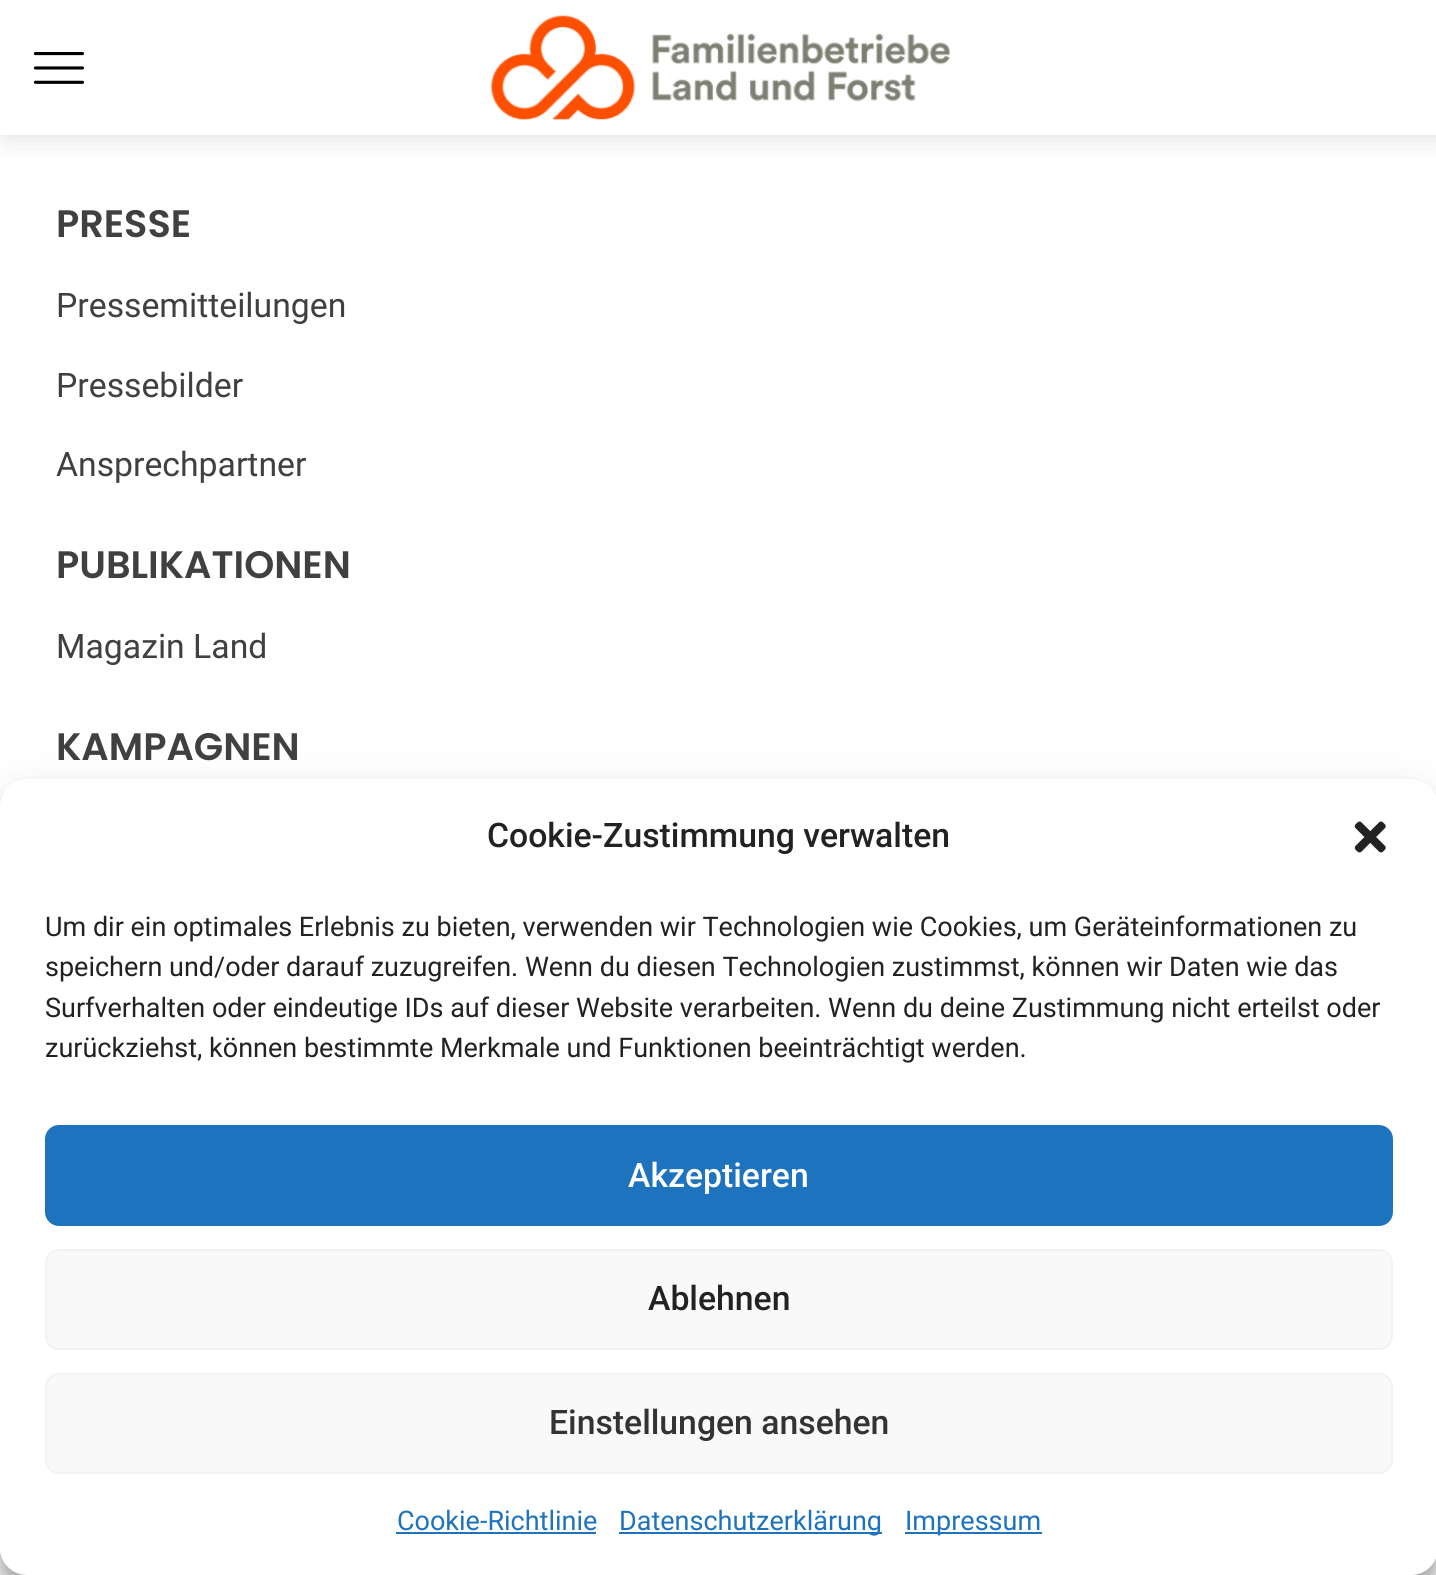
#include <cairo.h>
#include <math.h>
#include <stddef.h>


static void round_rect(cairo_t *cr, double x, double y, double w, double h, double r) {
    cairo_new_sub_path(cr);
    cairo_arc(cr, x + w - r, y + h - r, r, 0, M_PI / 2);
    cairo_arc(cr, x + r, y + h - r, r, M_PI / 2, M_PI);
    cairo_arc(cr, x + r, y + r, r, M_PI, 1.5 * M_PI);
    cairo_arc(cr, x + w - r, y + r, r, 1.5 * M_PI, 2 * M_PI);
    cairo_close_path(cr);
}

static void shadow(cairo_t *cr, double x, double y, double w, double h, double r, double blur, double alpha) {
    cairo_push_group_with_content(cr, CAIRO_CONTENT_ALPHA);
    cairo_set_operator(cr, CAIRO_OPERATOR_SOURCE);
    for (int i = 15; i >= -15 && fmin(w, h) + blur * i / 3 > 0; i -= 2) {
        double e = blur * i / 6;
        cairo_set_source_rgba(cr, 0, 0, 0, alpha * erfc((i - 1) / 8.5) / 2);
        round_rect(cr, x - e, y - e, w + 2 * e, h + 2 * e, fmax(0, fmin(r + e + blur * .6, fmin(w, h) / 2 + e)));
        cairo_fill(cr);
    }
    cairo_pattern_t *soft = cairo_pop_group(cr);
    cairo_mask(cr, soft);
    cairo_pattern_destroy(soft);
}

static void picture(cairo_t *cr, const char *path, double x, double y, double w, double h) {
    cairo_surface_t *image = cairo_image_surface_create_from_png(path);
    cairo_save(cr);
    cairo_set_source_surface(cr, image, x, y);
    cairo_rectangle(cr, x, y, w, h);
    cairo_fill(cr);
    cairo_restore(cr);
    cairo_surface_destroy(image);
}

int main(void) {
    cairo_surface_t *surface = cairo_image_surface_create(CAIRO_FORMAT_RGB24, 1436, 1575);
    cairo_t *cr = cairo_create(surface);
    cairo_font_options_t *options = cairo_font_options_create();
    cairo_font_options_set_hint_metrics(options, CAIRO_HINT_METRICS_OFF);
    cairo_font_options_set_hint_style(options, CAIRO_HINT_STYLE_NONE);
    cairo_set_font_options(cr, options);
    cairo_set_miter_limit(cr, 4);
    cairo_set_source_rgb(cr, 1, 1, 1);
    cairo_paint(cr);
    cairo_set_source_rgb(cr, 0, 0, 0);
    shadow(cr, 5, 0, 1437, 135, 0, 13.5, 0.15);
    cairo_set_source_rgb(cr, 1, 1, 1);
    cairo_rectangle(cr, 0, 0, 1436, 135);
    cairo_fill(cr);
    picture(cr, "img1.png", 33, 52, 51, 32);
    picture(cr, "img2.png", 491, 15, 459, 105);
    cairo_select_font_face(cr, "Poppins SemiBold", CAIRO_FONT_SLANT_NORMAL, CAIRO_FONT_WEIGHT_NORMAL);
    cairo_set_font_size(cr, 38.25);
    cairo_set_source_rgb(cr, 0.255, 0.247, 0.247);
    cairo_move_to(cr, 56, 237);
    cairo_show_text(cr, "PRESSE");
    cairo_select_font_face(cr, "Roboto", CAIRO_FONT_SLANT_NORMAL, CAIRO_FONT_WEIGHT_NORMAL);
    cairo_set_font_size(cr, 33.75);
    cairo_move_to(cr, 56, 317);
    cairo_show_text(cr, "Pressemitteilungen");
    cairo_move_to(cr, 56, 397);
    cairo_show_text(cr, "Pressebilder");
    cairo_move_to(cr, 56, 476);
    cairo_show_text(cr, "Ansprechpartner");
    cairo_select_font_face(cr, "Poppins SemiBold", CAIRO_FONT_SLANT_NORMAL, CAIRO_FONT_WEIGHT_NORMAL);
    cairo_set_font_size(cr, 38.25);
    cairo_move_to(cr, 56, 578);
    cairo_show_text(cr, "PUBLIKATIONEN");
    cairo_select_font_face(cr, "Roboto", CAIRO_FONT_SLANT_NORMAL, CAIRO_FONT_WEIGHT_NORMAL);
    cairo_set_font_size(cr, 33.75);
    cairo_move_to(cr, 56, 658);
    cairo_show_text(cr, "Magazin Land");
    cairo_select_font_face(cr, "Poppins SemiBold", CAIRO_FONT_SLANT_NORMAL, CAIRO_FONT_WEIGHT_NORMAL);
    cairo_set_font_size(cr, 38.25);
    cairo_move_to(cr, 56, 760);
    cairo_show_text(cr, "KAMPAGNEN");
    cairo_set_source_rgb(cr, 0, 0, 0);
    shadow(cr, 0, 792, 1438, 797, 27, 7, 0.23);
    shadow(cr, 0, 801, 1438, 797, 27, 22.5, 0.19);
    cairo_set_source_rgb(cr, 1, 1, 1);
    round_rect(cr, 0, 779, 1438, 796, 27);
    cairo_fill(cr);
    cairo_select_font_face(cr, "Roboto Medium", CAIRO_FONT_SLANT_NORMAL, CAIRO_FONT_WEIGHT_NORMAL);
    cairo_set_font_size(cr, 33.75);
    cairo_set_source_rgb(cr, 0.133, 0.133, 0.133);
    cairo_move_to(cr, 487, 847);
    cairo_show_text(cr, "Cookie-Zustimmung verwalten");
    picture(cr, "img3.png", 1354, 821, 32, 32);
    cairo_select_font_face(cr, "Roboto", CAIRO_FONT_SLANT_NORMAL, CAIRO_FONT_WEIGHT_NORMAL);
    cairo_set_font_size(cr, 27);
    cairo_move_to(cr, 45, 936);
    cairo_show_text(cr, "Um dir ein optimales Erlebnis zu bieten, verwenden wir Technologien wie Cookies, um Geräteinformationen zu");
    cairo_move_to(cr, 45, 976);
    cairo_show_text(cr, "speichern und/oder darauf zuzugreifen. Wenn du diesen Technologien zustimmst, können wir Daten wie das");
    cairo_move_to(cr, 45, 1017);
    cairo_show_text(cr, "Surfverhalten oder eindeutige IDs auf dieser Website verarbeiten. Wenn du deine Zustimmung nicht erteilst oder");
    cairo_move_to(cr, 45, 1057);
    cairo_show_text(cr, "zurückziehst, können bestimmte Merkmale und Funktionen beeinträchtigt werden.");
    cairo_set_source_rgb(cr, 0.118, 0.451, 0.745);
    round_rect(cr, 46, 1126, 1346, 99, 13);
    cairo_fill_preserve(cr);
    cairo_stroke(cr);
    cairo_select_font_face(cr, "Roboto Medium", CAIRO_FONT_SLANT_NORMAL, CAIRO_FONT_WEIGHT_NORMAL);
    cairo_set_font_size(cr, 33.75);
    cairo_set_source_rgb(cr, 1, 1, 1);
    cairo_move_to(cr, 628, 1187);
    cairo_show_text(cr, "Akzeptieren");
    cairo_set_source_rgb(cr, 0.976, 0.976, 0.976);
    round_rect(cr, 46, 1250, 1346, 99, 13);
    cairo_fill_preserve(cr);
    cairo_set_source_rgb(cr, 0.949, 0.949, 0.949);
    cairo_stroke(cr);
    cairo_set_source_rgb(cr, 0.133, 0.133, 0.133);
    cairo_move_to(cr, 648, 1310);
    cairo_show_text(cr, "Ablehnen");
    cairo_set_source_rgb(cr, 0.976, 0.976, 0.976);
    round_rect(cr, 46, 1374, 1346, 99, 13);
    cairo_fill_preserve(cr);
    cairo_set_source_rgb(cr, 0.949, 0.949, 0.949);
    cairo_stroke(cr);
    cairo_set_source_rgb(cr, 0.2, 0.2, 0.2);
    cairo_move_to(cr, 549, 1434);
    cairo_show_text(cr, "Einstellungen ansehen");
    cairo_select_font_face(cr, "Roboto", CAIRO_FONT_SLANT_NORMAL, CAIRO_FONT_WEIGHT_NORMAL);
    cairo_set_font_size(cr, 27);
    cairo_set_source_rgb(cr, 0.118, 0.451, 0.745);
    cairo_move_to(cr, 397, 1530);
    cairo_show_text(cr, "Cookie-Richtlinie");
    cairo_rectangle(cr, 396, 1532, 200, 2);
    cairo_fill(cr);
    cairo_rectangle(cr, 619, 1532, 263, 2);
    cairo_fill(cr);
    cairo_move_to(cr, 619, 1530);
    cairo_show_text(cr, "Datenschutzerklärung");
    cairo_rectangle(cr, 905, 1532, 137, 2);
    cairo_fill(cr);
    cairo_move_to(cr, 905, 1530);
    cairo_show_text(cr, "Impressum");
    cairo_surface_write_to_png(surface, "page.png");
    cairo_font_options_destroy(options);
    cairo_destroy(cr);
    cairo_surface_destroy(surface);
    return 0;
}
